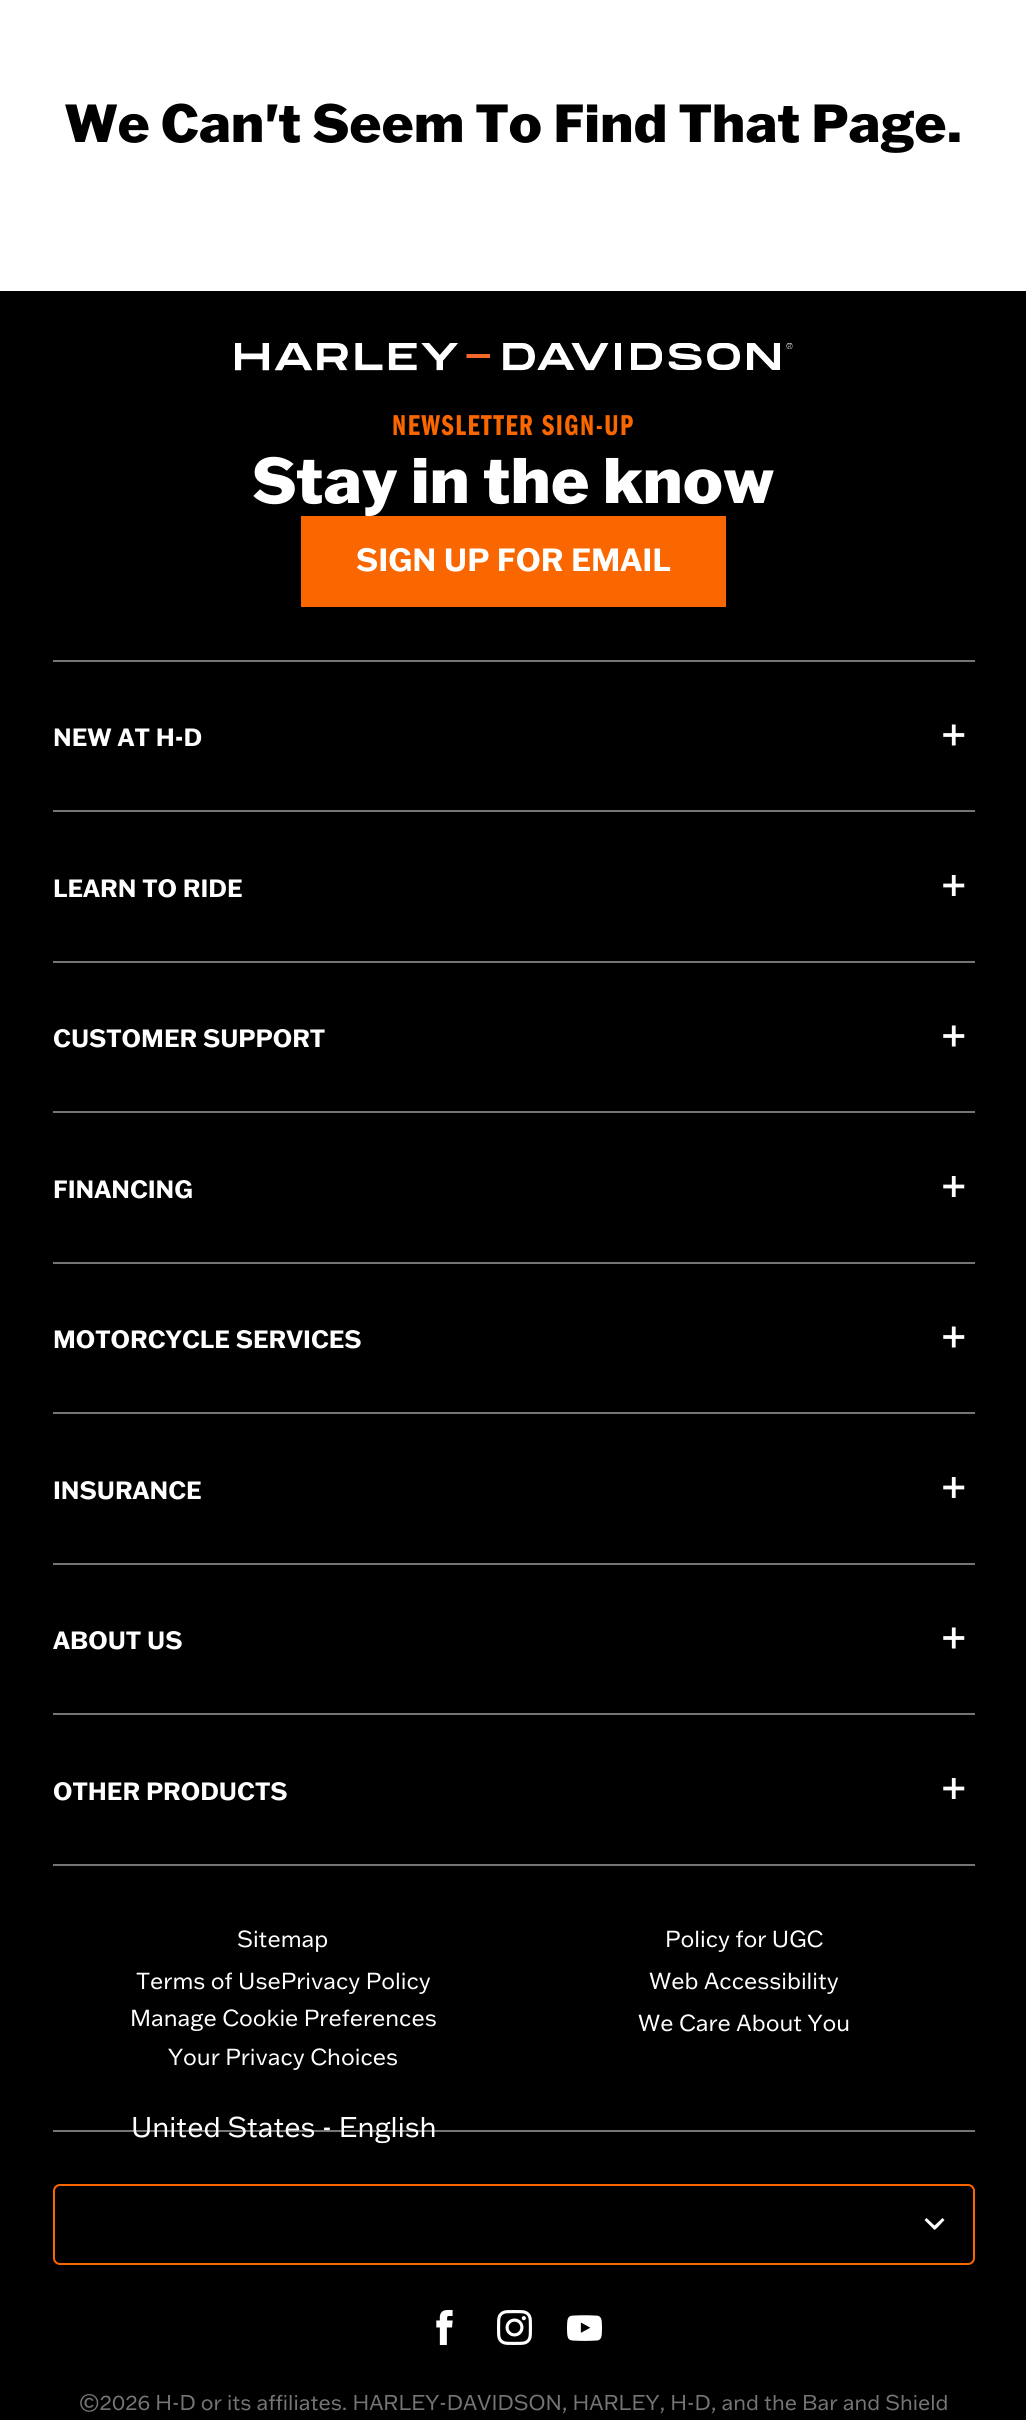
#include <cairo.h>
#include <math.h>
#include <stddef.h>


static void spaced_text(cairo_t *cr, double x, double y, const char *s, double letter, double word) {
    cairo_move_to(cr, x, y);
    while (*s) {
        char ch[5] = {0};
        int n = 0;
        do ch[n++] = *s++; while ((*s & 0xC0) == 0x80);
        cairo_show_text(cr, ch);
        cairo_rel_move_to(cr, letter + word * (*ch == ' '), 0);
    }
}

static void round_rect(cairo_t *cr, double x, double y, double w, double h, double r) {
    cairo_new_sub_path(cr);
    cairo_arc(cr, x + w - r, y + h - r, r, 0, M_PI / 2);
    cairo_arc(cr, x + r, y + h - r, r, M_PI / 2, M_PI);
    cairo_arc(cr, x + r, y + r, r, M_PI, 1.5 * M_PI);
    cairo_arc(cr, x + w - r, y + r, r, 1.5 * M_PI, 2 * M_PI);
    cairo_close_path(cr);
}

static void picture(cairo_t *cr, const char *path, double x, double y, double w, double h) {
    cairo_surface_t *image = cairo_image_surface_create_from_png(path);
    cairo_save(cr);
    cairo_set_source_surface(cr, image, x, y);
    cairo_rectangle(cr, x, y, w, h);
    cairo_fill(cr);
    cairo_restore(cr);
    cairo_surface_destroy(image);
}

int main(void) {
    cairo_surface_t *surface = cairo_image_surface_create(CAIRO_FORMAT_RGB24, 1026, 2420);
    cairo_t *cr = cairo_create(surface);
    cairo_font_options_t *options = cairo_font_options_create();
    cairo_font_options_set_hint_metrics(options, CAIRO_HINT_METRICS_OFF);
    cairo_font_options_set_hint_style(options, CAIRO_HINT_STYLE_NONE);
    cairo_set_font_options(cr, options);
    cairo_set_miter_limit(cr, 4);
    cairo_set_source_rgb(cr, 1, 1, 1);
    cairo_paint(cr);
    cairo_select_font_face(cr, "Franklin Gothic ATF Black", CAIRO_FONT_SLANT_NORMAL, CAIRO_FONT_WEIGHT_NORMAL);
    cairo_set_font_size(cr, 52.5);
    cairo_set_source_rgb(cr, 0, 0, 0);
    cairo_move_to(cr, 65, 142);
    cairo_show_text(cr, "We Can't Seem To Find That Page.");
    cairo_rectangle(cr, 0, 291, 1026, 2129);
    cairo_fill(cr);
    picture(cr, "img1.png", 235, 343, 558, 28);
    cairo_select_font_face(cr, "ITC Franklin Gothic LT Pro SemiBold", CAIRO_FONT_SLANT_NORMAL, CAIRO_FONT_WEIGHT_NORMAL);
    cairo_set_font_size(cr, 29.75);
    cairo_set_source_rgb(cr, 0.98, 0.4, 0);
    spaced_text(cr, 392, 435, "NEWSLETTER SIGN-UP", 1.5, 0);
    cairo_select_font_face(cr, "Franklin Gothic ATF Black", CAIRO_FONT_SLANT_NORMAL, CAIRO_FONT_WEIGHT_NORMAL);
    cairo_set_font_size(cr, 63);
    cairo_set_source_rgb(cr, 1, 1, 1);
    cairo_move_to(cr, 252, 503);
    cairo_show_text(cr, "Stay in the know");
    cairo_set_source_rgb(cr, 0.98, 0.4, 0);
    cairo_rectangle(cr, 301, 516, 425, 91);
    cairo_fill(cr);
    cairo_select_font_face(cr, "Franklin Gothic ATF", CAIRO_FONT_SLANT_NORMAL, CAIRO_FONT_WEIGHT_BOLD);
    cairo_set_font_size(cr, 31.5);
    cairo_set_source_rgb(cr, 1, 1, 1);
    cairo_move_to(cr, 356, 571);
    cairo_show_text(cr, "SIGN UP FOR EMAIL");
    cairo_set_source_rgb(cr, 0.459, 0.459, 0.459);
    cairo_rectangle(cr, 53, 1864, 922, 2);
    cairo_fill(cr);
    cairo_rectangle(cr, 53, 660, 922, 2);
    cairo_fill(cr);
    cairo_set_font_size(cr, 24.5);
    cairo_set_source_rgb(cr, 1, 1, 1);
    cairo_move_to(cr, 53, 746);
    cairo_show_text(cr, "NEW AT H-D");
    picture(cr, "img2.png", 943, 724, 22, 22);
    cairo_set_source_rgb(cr, 0.459, 0.459, 0.459);
    cairo_rectangle(cr, 53, 810, 922, 2);
    cairo_fill(cr);
    cairo_set_source_rgb(cr, 1, 1, 1);
    cairo_move_to(cr, 53, 897);
    cairo_show_text(cr, "LEARN TO RIDE");
    picture(cr, "img3.png", 943, 875, 22, 21);
    cairo_set_source_rgb(cr, 0.459, 0.459, 0.459);
    cairo_rectangle(cr, 53, 961, 922, 2);
    cairo_fill(cr);
    cairo_set_source_rgb(cr, 1, 1, 1);
    cairo_move_to(cr, 53, 1047);
    cairo_show_text(cr, "CUSTOMER SUPPORT");
    picture(cr, "img2.png", 943, 1025, 22, 22);
    cairo_set_source_rgb(cr, 0.459, 0.459, 0.459);
    cairo_rectangle(cr, 53, 1111, 922, 2);
    cairo_fill(cr);
    cairo_set_source_rgb(cr, 1, 1, 1);
    cairo_move_to(cr, 53, 1198);
    cairo_show_text(cr, "FINANCING");
    picture(cr, "img3.png", 943, 1176, 22, 21);
    cairo_set_source_rgb(cr, 0.459, 0.459, 0.459);
    cairo_rectangle(cr, 53, 1262, 922, 2);
    cairo_fill(cr);
    cairo_set_source_rgb(cr, 1, 1, 1);
    cairo_move_to(cr, 53, 1348);
    cairo_show_text(cr, "MOTORCYCLE SERVICES");
    picture(cr, "img2.png", 943, 1326, 22, 22);
    cairo_set_source_rgb(cr, 0.459, 0.459, 0.459);
    cairo_rectangle(cr, 53, 1412, 922, 2);
    cairo_fill(cr);
    cairo_set_source_rgb(cr, 1, 1, 1);
    cairo_move_to(cr, 53, 1499);
    cairo_show_text(cr, "INSURANCE");
    picture(cr, "img3.png", 943, 1477, 22, 21);
    cairo_set_source_rgb(cr, 0.459, 0.459, 0.459);
    cairo_rectangle(cr, 53, 1563, 922, 2);
    cairo_fill(cr);
    cairo_set_source_rgb(cr, 1, 1, 1);
    cairo_move_to(cr, 53, 1649);
    cairo_show_text(cr, "ABOUT US");
    picture(cr, "img2.png", 943, 1627, 22, 22);
    cairo_set_source_rgb(cr, 0.459, 0.459, 0.459);
    cairo_rectangle(cr, 53, 1713, 922, 2);
    cairo_fill(cr);
    cairo_set_source_rgb(cr, 1, 1, 1);
    cairo_move_to(cr, 53, 1800);
    cairo_show_text(cr, "OTHER PRODUCTS");
    picture(cr, "img3.png", 943, 1778, 22, 21);
    cairo_select_font_face(cr, "Franklin Gothic ATF", CAIRO_FONT_SLANT_NORMAL, CAIRO_FONT_WEIGHT_NORMAL);
    cairo_set_font_size(cr, 22.75);
    cairo_move_to(cr, 237, 1947);
    cairo_show_text(cr, "Sitemap");
    cairo_move_to(cr, 136, 1989);
    cairo_show_text(cr, "Terms of UsePrivacy Policy");
    cairo_move_to(cr, 130, 2026);
    cairo_show_text(cr, "Manage Cookie Preferences");
    cairo_move_to(cr, 168, 2065);
    cairo_show_text(cr, "Your Privacy Choices");
    cairo_move_to(cr, 665, 1947);
    cairo_show_text(cr, "Policy for UGC");
    cairo_move_to(cr, 649, 1989);
    cairo_show_text(cr, "Web Accessibility");
    cairo_move_to(cr, 638, 2031);
    cairo_show_text(cr, "We Care About You");
    cairo_set_source_rgb(cr, 0.459, 0.459, 0.459);
    cairo_rectangle(cr, 53, 2130, 922, 2);
    cairo_fill(cr);
    round_rect(cr, 54, 2185, 920, 79, 6);
    cairo_set_source_rgb(cr, 0.98, 0.4, 0);
    cairo_stroke(cr);
    cairo_set_font_size(cr, 28);
    cairo_set_source_rgb(cr, 1, 1, 1);
    cairo_move_to(cr, 131, 2137);
    cairo_show_text(cr, "United States - English");
    cairo_set_fill_rule(cr, CAIRO_FILL_RULE_EVEN_ODD);
    cairo_new_path(cr);
    cairo_move_to(cr, 937, 2228);
    cairo_line_to(cr, 934.5, 2230);
    cairo_line_to(cr, 924.5, 2220);
    cairo_line_to(cr, 926.5, 2218);
    cairo_line_to(cr, 934.5, 2225.5);
    cairo_line_to(cr, 942.5, 2218);
    cairo_line_to(cr, 944.5, 2220);
    cairo_close_path(cr);
    cairo_fill(cr);
    picture(cr, "img4.png", 436, 2310, 17, 35);
    picture(cr, "img5.png", 497, 2310, 35, 35);
    picture(cr, "img6.png", 567, 2315, 35, 26);
    cairo_set_font_size(cr, 21);
    cairo_set_source_rgb(cr, 0.459, 0.459, 0.459);
    cairo_move_to(cr, 79, 2410);
    cairo_show_text(cr, "©2026 H-D or its affiliates. HARLEY-DAVIDSON, HARLEY, H-D, and the Bar and Shield");
    cairo_surface_write_to_png(surface, "page.png");
    cairo_font_options_destroy(options);
    cairo_destroy(cr);
    cairo_surface_destroy(surface);
    return 0;
}
